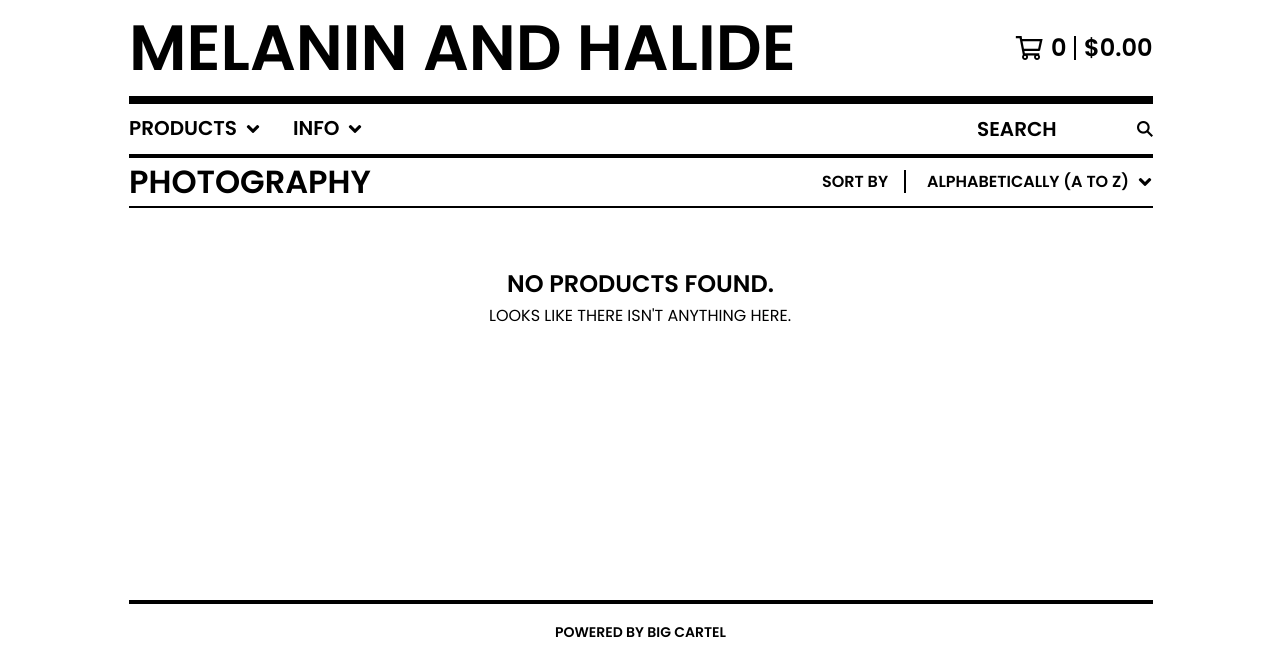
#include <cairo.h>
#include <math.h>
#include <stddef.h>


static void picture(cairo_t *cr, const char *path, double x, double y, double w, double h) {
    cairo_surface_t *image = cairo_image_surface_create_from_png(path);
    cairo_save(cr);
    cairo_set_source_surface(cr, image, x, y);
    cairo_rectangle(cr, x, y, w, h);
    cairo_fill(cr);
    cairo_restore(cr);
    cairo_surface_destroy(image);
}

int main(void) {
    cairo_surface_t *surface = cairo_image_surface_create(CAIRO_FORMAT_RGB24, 1281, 660);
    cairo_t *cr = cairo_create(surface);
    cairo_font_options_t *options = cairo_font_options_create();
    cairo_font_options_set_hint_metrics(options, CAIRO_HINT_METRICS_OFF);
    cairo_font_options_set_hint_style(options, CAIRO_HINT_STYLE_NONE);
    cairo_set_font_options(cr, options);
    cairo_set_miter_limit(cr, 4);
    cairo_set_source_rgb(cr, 1, 1, 1);
    cairo_paint(cr);
    cairo_set_source_rgb(cr, 0, 0, 0);
    cairo_rectangle(cr, 129, 96, 1024, 8);
    cairo_fill(cr);
    cairo_select_font_face(cr, "Poppins SemiBold", CAIRO_FONT_SLANT_NORMAL, CAIRO_FONT_WEIGHT_NORMAL);
    cairo_set_font_size(cr, 64);
    cairo_move_to(cr, 129, 70);
    cairo_show_text(cr, "MELANIN AND HALIDE");
    picture(cr, "img1.png", 1015, 36, 28, 24);
    cairo_rectangle(cr, 1074, 36, 2, 24);
    cairo_fill(cr);
    cairo_set_font_size(cr, 24);
    cairo_move_to(cr, 1051, 56);
    cairo_show_text(cr, "0");
    cairo_move_to(cr, 1084, 56);
    cairo_show_text(cr, "$0.00");
    cairo_rectangle(cr, 129, 154, 1024, 4);
    cairo_fill(cr);
    cairo_set_font_size(cr, 20);
    cairo_move_to(cr, 129, 135);
    cairo_show_text(cr, "PRODUCTS");
    picture(cr, "img2.png", 246, 125, 14, 8);
    cairo_move_to(cr, 293, 135);
    cairo_show_text(cr, "INFO");
    picture(cr, "img2.png", 348, 125, 14, 8);
    cairo_move_to(cr, 977, 136);
    cairo_show_text(cr, "SEARCH");
    picture(cr, "img3.png", 1137, 121, 16, 16);
    cairo_rectangle(cr, 129, 206, 1024, 2);
    cairo_fill(cr);
    cairo_set_font_size(cr, 32);
    cairo_move_to(cr, 129, 193);
    cairo_show_text(cr, "PHOTOGRAPHY");
    cairo_set_font_size(cr, 16);
    cairo_move_to(cr, 822, 187);
    cairo_show_text(cr, "SORT BY");
    cairo_rectangle(cr, 904, 170, 2, 23);
    cairo_fill(cr);
    cairo_move_to(cr, 927, 187);
    cairo_show_text(cr, "ALPHABETICALLY (A TO Z)");
    picture(cr, "img2.png", 1138, 178, 14, 8);
    cairo_set_font_size(cr, 24);
    cairo_move_to(cr, 507, 292);
    cairo_show_text(cr, "NO PRODUCTS FOUND.");
    cairo_select_font_face(cr, "Poppins", CAIRO_FONT_SLANT_NORMAL, CAIRO_FONT_WEIGHT_NORMAL);
    cairo_set_font_size(cr, 16);
    cairo_move_to(cr, 489, 321);
    cairo_show_text(cr, "LOOKS LIKE THERE ISN'T ANYTHING HERE.");
    cairo_rectangle(cr, 129, 600, 1024, 4);
    cairo_fill(cr);
    cairo_select_font_face(cr, "Poppins SemiBold", CAIRO_FONT_SLANT_NORMAL, CAIRO_FONT_WEIGHT_NORMAL);
    cairo_set_font_size(cr, 14);
    cairo_move_to(cr, 555, 637);
    cairo_show_text(cr, "POWERED BY BIG CARTEL");
    cairo_surface_write_to_png(surface, "page.png");
    cairo_font_options_destroy(options);
    cairo_destroy(cr);
    cairo_surface_destroy(surface);
    return 0;
}
